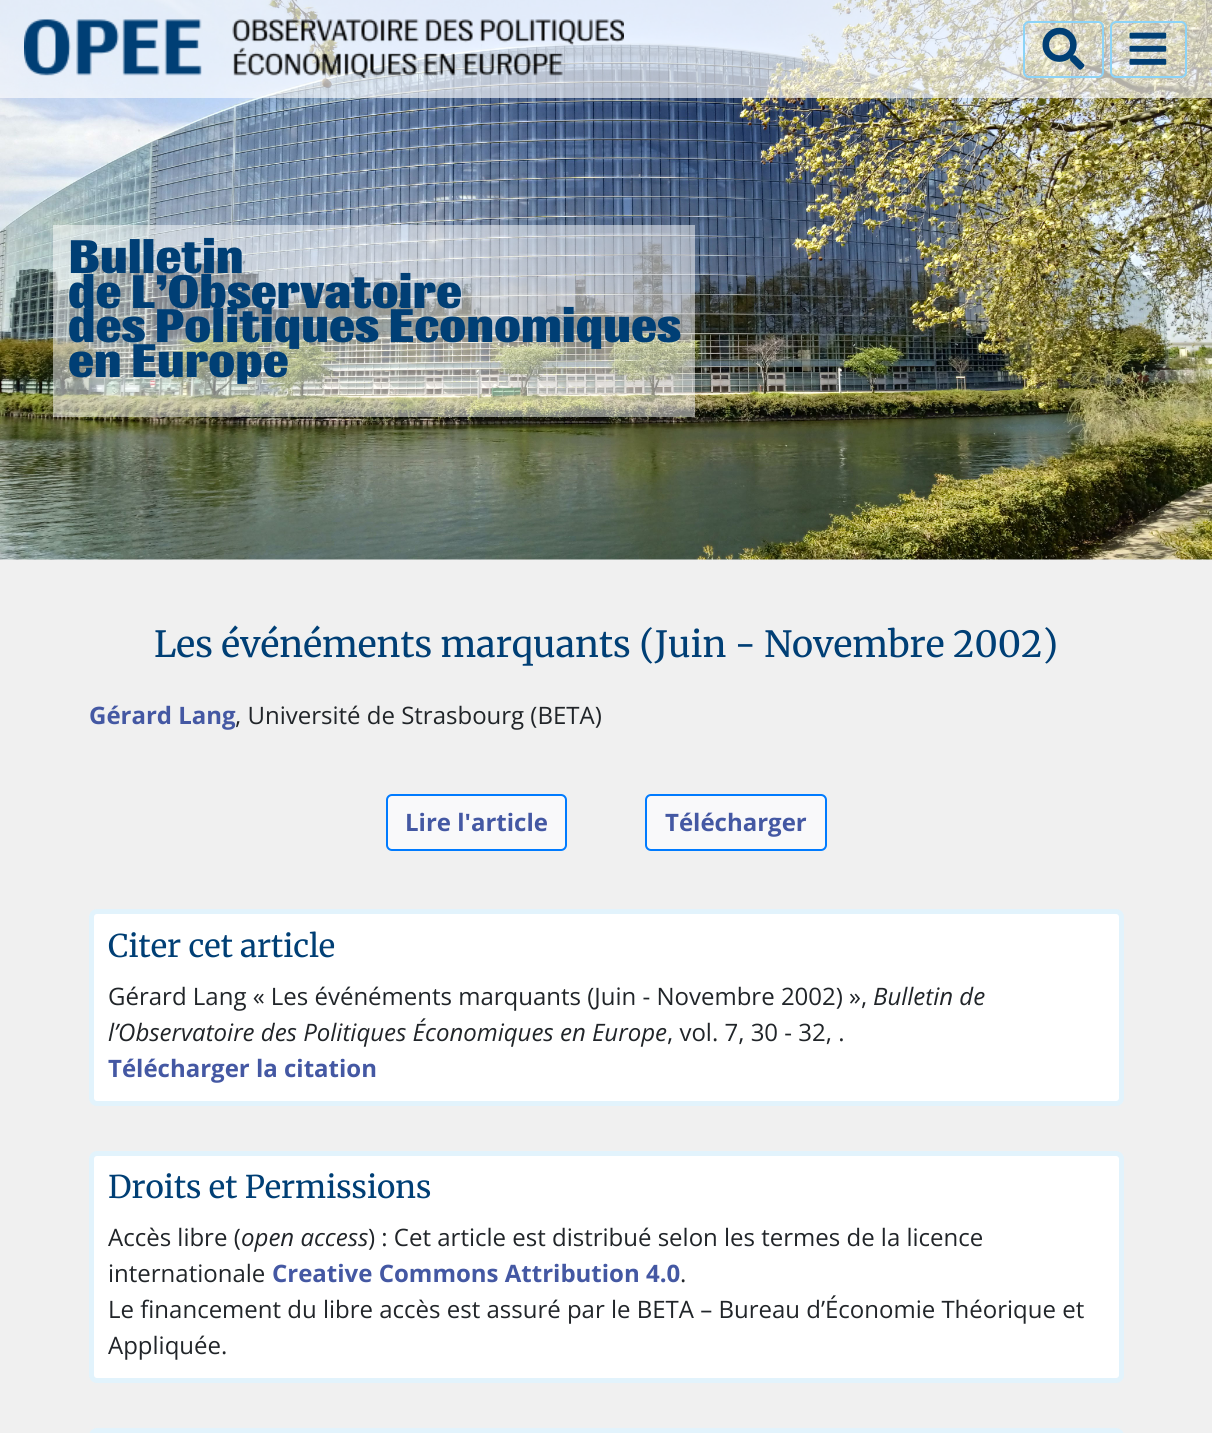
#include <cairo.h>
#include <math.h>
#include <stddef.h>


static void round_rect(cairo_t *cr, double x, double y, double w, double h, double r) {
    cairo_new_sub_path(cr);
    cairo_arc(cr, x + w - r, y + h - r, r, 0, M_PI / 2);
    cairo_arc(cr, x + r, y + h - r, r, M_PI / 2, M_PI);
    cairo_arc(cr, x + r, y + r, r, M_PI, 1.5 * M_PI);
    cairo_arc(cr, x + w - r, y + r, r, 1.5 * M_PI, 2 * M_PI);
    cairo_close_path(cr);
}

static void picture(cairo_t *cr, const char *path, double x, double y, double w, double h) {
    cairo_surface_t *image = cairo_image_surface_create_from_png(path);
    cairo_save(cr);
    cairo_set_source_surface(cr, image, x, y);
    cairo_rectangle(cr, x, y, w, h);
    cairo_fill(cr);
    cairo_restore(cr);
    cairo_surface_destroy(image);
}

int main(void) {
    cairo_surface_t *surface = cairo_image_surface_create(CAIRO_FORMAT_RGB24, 1212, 1433);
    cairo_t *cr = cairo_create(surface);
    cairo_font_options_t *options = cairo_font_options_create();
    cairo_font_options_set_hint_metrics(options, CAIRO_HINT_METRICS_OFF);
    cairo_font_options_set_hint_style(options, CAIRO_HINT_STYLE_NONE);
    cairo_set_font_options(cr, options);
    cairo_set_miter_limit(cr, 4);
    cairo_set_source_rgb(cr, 0.941, 0.941, 0.941);
    cairo_paint(cr);
    picture(cr, "img1.png", 0, 0, 1212, 560);
    cairo_set_source_rgba(cr, 1, 1, 1, 0.65);
    cairo_rectangle(cr, 0, 0, 1212, 98);
    cairo_fill(cr);
    picture(cr, "img2.png", 24, 19, 600, 59);
    round_rect(cr, 1024, 22, 79, 55, 5);
    cairo_set_source_rgb(cr, 0.549, 0.827, 0.965);
    cairo_stroke(cr);
    picture(cr, "img3.png", 1042, 27, 43, 43);
    round_rect(cr, 1111, 22, 75, 55, 5);
    cairo_stroke(cr);
    picture(cr, "img4.png", 1129, 32, 38, 33);
    cairo_set_source_rgba(cr, 1, 1, 1, 0.5);
    cairo_rectangle(cr, 53, 225, 642, 192);
    cairo_fill(cr);
    cairo_select_font_face(cr, "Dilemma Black", CAIRO_FONT_SLANT_NORMAL, CAIRO_FONT_WEIGHT_NORMAL);
    cairo_set_font_size(cr, 43.25);
    cairo_set_source_rgb(cr, 0, 0.247, 0.459);
    cairo_move_to(cr, 68, 273);
    cairo_show_text(cr, "Bulletin");
    cairo_move_to(cr, 68, 308);
    cairo_show_text(cr, "de L’Observatoire");
    cairo_move_to(cr, 68, 342);
    cairo_show_text(cr, "des Politiques Économiques");
    cairo_move_to(cr, 68, 377);
    cairo_show_text(cr, "en Europe");
    cairo_select_font_face(cr, "Merriweather Light", CAIRO_FONT_SLANT_NORMAL, CAIRO_FONT_WEIGHT_NORMAL);
    cairo_set_font_size(cr, 36);
    cairo_move_to(cr, 154, 657);
    cairo_show_text(cr, "Les événéments marquants (Juin - Novembre 2002)");
    cairo_select_font_face(cr, "Open Sans", CAIRO_FONT_SLANT_NORMAL, CAIRO_FONT_WEIGHT_BOLD);
    cairo_set_font_size(cr, 24);
    cairo_set_source_rgb(cr, 0.267, 0.345, 0.639);
    cairo_move_to(cr, 89, 724);
    cairo_show_text(cr, "Gérard Lang");
    cairo_select_font_face(cr, "Open Sans", CAIRO_FONT_SLANT_NORMAL, CAIRO_FONT_WEIGHT_NORMAL);
    cairo_set_source_rgb(cr, 0.129, 0.145, 0.161);
    cairo_move_to(cr, 235, 724);
    cairo_show_text(cr, ", Université de Strasbourg (BETA)");
    cairo_set_source_rgb(cr, 0.973, 0.976, 0.98);
    round_rect(cr, 387, 795, 179, 55, 5);
    cairo_fill_preserve(cr);
    cairo_set_source_rgb(cr, 0, 0.482, 1);
    cairo_stroke(cr);
    cairo_select_font_face(cr, "Open Sans", CAIRO_FONT_SLANT_NORMAL, CAIRO_FONT_WEIGHT_BOLD);
    cairo_set_source_rgb(cr, 0.267, 0.345, 0.639);
    cairo_move_to(cr, 405, 831);
    cairo_show_text(cr, "Lire l'article");
    cairo_set_source_rgb(cr, 0.973, 0.976, 0.98);
    round_rect(cr, 646, 795, 180, 55, 5);
    cairo_fill_preserve(cr);
    cairo_set_source_rgb(cr, 0, 0.482, 1);
    cairo_stroke(cr);
    cairo_set_source_rgb(cr, 0.267, 0.345, 0.639);
    cairo_move_to(cr, 665, 831);
    cairo_show_text(cr, "Télécharger");
    cairo_set_source_rgb(cr, 1, 1, 1);
    round_rect(cr, 91.5, 911.5, 1030, 192, 5.5);
    cairo_fill_preserve(cr);
    cairo_set_source_rgb(cr, 0.886, 0.953, 0.988);
    cairo_set_line_width(cr, 5);
    cairo_stroke(cr);
    cairo_select_font_face(cr, "Merriweather Light", CAIRO_FONT_SLANT_NORMAL, CAIRO_FONT_WEIGHT_NORMAL);
    cairo_set_font_size(cr, 31.25);
    cairo_set_source_rgb(cr, 0, 0.247, 0.459);
    cairo_move_to(cr, 108, 957);
    cairo_show_text(cr, "Citer cet article");
    cairo_select_font_face(cr, "Open Sans", CAIRO_FONT_SLANT_NORMAL, CAIRO_FONT_WEIGHT_NORMAL);
    cairo_set_font_size(cr, 24);
    cairo_set_source_rgb(cr, 0.129, 0.145, 0.161);
    cairo_move_to(cr, 108, 1005);
    cairo_show_text(cr, "Gérard Lang « Les événéments marquants (Juin - Novembre 2002) »,");
    cairo_select_font_face(cr, "Open Sans", CAIRO_FONT_SLANT_ITALIC, CAIRO_FONT_WEIGHT_NORMAL);
    cairo_move_to(cr, 873, 1005);
    cairo_show_text(cr, "Bulletin de");
    cairo_move_to(cr, 108, 1041);
    cairo_show_text(cr, "l’Observatoire des Politiques Économiques en Europe");
    cairo_select_font_face(cr, "Open Sans", CAIRO_FONT_SLANT_NORMAL, CAIRO_FONT_WEIGHT_NORMAL);
    cairo_move_to(cr, 667, 1041);
    cairo_show_text(cr, ", vol. 7, 30 - 32, .");
    cairo_select_font_face(cr, "Open Sans", CAIRO_FONT_SLANT_NORMAL, CAIRO_FONT_WEIGHT_BOLD);
    cairo_set_source_rgb(cr, 0.267, 0.345, 0.639);
    cairo_move_to(cr, 108, 1077);
    cairo_show_text(cr, "Télécharger la citation");
    cairo_set_source_rgb(cr, 1, 1, 1);
    round_rect(cr, 91.5, 1153.5, 1030, 227, 5.5);
    cairo_fill_preserve(cr);
    cairo_set_source_rgb(cr, 0.886, 0.953, 0.988);
    cairo_stroke(cr);
    cairo_select_font_face(cr, "Merriweather Light", CAIRO_FONT_SLANT_NORMAL, CAIRO_FONT_WEIGHT_NORMAL);
    cairo_set_font_size(cr, 31.25);
    cairo_set_source_rgb(cr, 0, 0.247, 0.459);
    cairo_move_to(cr, 108, 1198);
    cairo_show_text(cr, "Droits et Permissions");
    cairo_select_font_face(cr, "Open Sans", CAIRO_FONT_SLANT_NORMAL, CAIRO_FONT_WEIGHT_NORMAL);
    cairo_set_font_size(cr, 24);
    cairo_set_source_rgb(cr, 0.129, 0.145, 0.161);
    cairo_move_to(cr, 108, 1246);
    cairo_show_text(cr, "Accès libre (");
    cairo_select_font_face(cr, "Open Sans", CAIRO_FONT_SLANT_ITALIC, CAIRO_FONT_WEIGHT_NORMAL);
    cairo_move_to(cr, 241, 1246);
    cairo_show_text(cr, "open access");
    cairo_select_font_face(cr, "Open Sans", CAIRO_FONT_SLANT_NORMAL, CAIRO_FONT_WEIGHT_NORMAL);
    cairo_move_to(cr, 368, 1246);
    cairo_show_text(cr, ") : Cet article est distribué selon les termes de la licence");
    cairo_move_to(cr, 108, 1282);
    cairo_show_text(cr, "internationale");
    cairo_select_font_face(cr, "Open Sans", CAIRO_FONT_SLANT_NORMAL, CAIRO_FONT_WEIGHT_BOLD);
    cairo_set_source_rgb(cr, 0.267, 0.345, 0.639);
    cairo_move_to(cr, 272, 1282);
    cairo_show_text(cr, "Creative Commons Attribution 4.0");
    cairo_select_font_face(cr, "Open Sans", CAIRO_FONT_SLANT_NORMAL, CAIRO_FONT_WEIGHT_NORMAL);
    cairo_set_source_rgb(cr, 0.129, 0.145, 0.161);
    cairo_move_to(cr, 680, 1282);
    cairo_show_text(cr, ".");
    cairo_move_to(cr, 108, 1318);
    cairo_show_text(cr, "Le financement du libre accès est assuré par le BETA – Bureau d’Économie Théorique et");
    cairo_move_to(cr, 108, 1354);
    cairo_show_text(cr, "Appliquée.");
    round_rect(cr, 91.5, 1430.5, 1030, 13, 5.5);
    cairo_set_source_rgb(cr, 0.886, 0.953, 0.988);
    cairo_stroke(cr);
    cairo_surface_write_to_png(surface, "page.png");
    cairo_font_options_destroy(options);
    cairo_destroy(cr);
    cairo_surface_destroy(surface);
    return 0;
}
